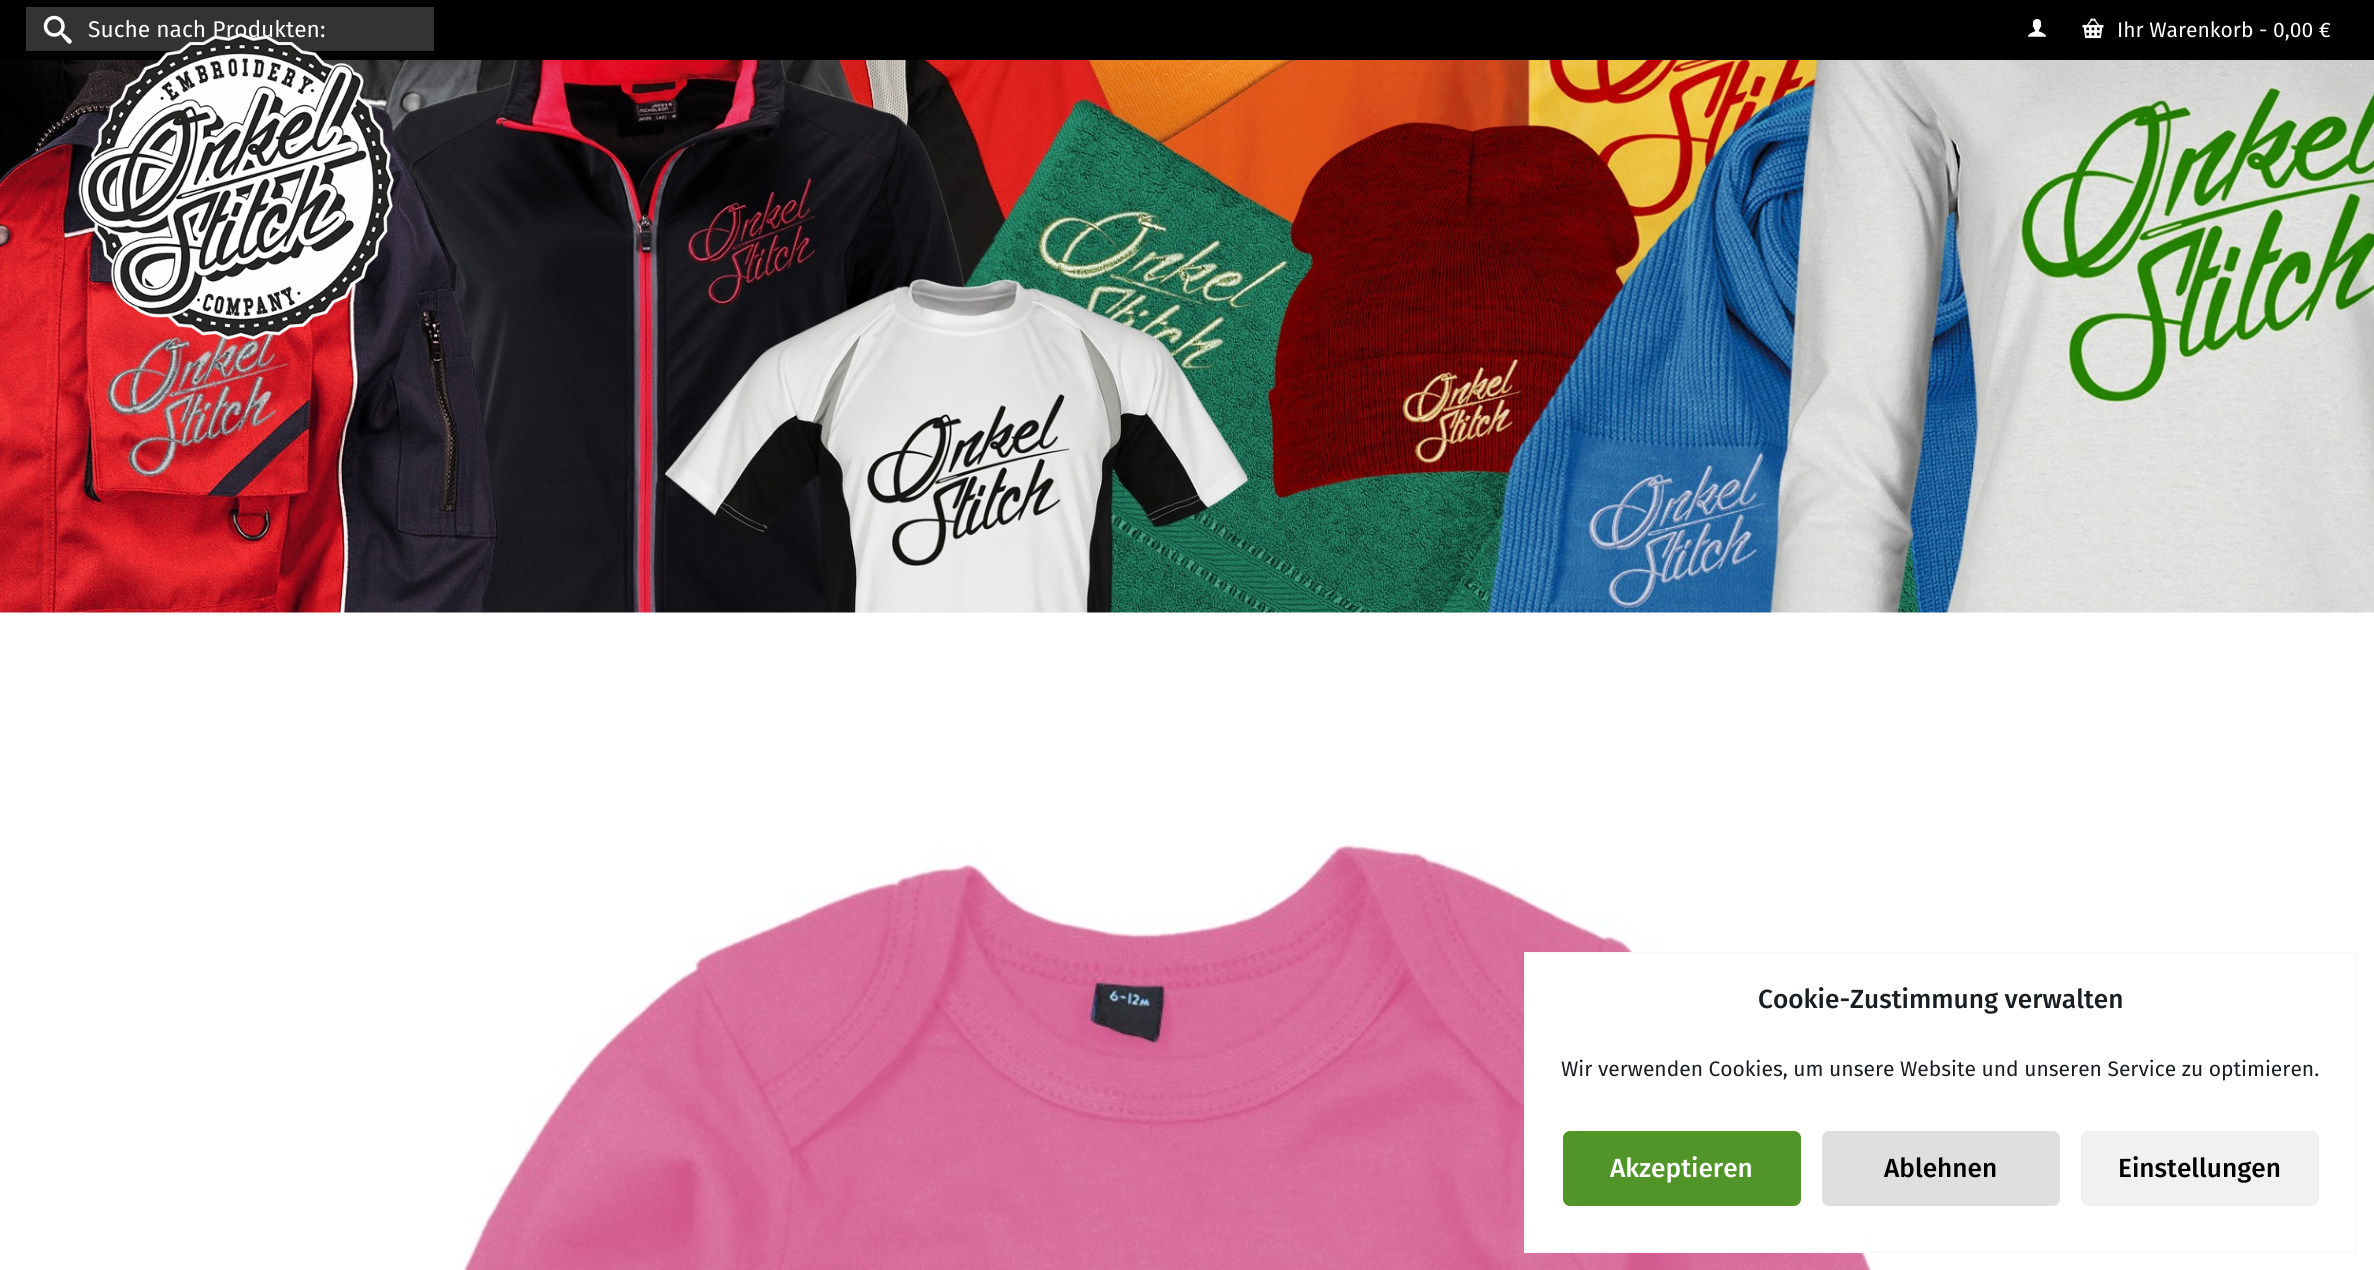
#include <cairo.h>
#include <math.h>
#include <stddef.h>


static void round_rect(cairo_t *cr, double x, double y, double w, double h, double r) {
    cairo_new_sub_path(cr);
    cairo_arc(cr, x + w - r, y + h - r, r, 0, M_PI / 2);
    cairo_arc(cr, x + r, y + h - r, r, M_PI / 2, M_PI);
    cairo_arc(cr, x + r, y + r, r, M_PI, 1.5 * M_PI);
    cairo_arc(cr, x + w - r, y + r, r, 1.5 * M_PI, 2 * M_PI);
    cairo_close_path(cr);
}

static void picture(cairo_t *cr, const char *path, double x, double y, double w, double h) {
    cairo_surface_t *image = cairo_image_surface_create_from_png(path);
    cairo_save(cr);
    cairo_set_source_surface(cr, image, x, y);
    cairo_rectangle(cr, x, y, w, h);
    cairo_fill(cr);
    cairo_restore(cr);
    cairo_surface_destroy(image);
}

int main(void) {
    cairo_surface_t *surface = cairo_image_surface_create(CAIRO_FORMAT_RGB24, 2374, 1270);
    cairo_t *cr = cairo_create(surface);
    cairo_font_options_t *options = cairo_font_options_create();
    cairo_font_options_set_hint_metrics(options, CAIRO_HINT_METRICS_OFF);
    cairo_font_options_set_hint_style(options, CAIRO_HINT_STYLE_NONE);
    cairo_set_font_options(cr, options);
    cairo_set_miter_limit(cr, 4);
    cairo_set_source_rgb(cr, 1, 1, 1);
    cairo_paint(cr);
    picture(cr, "img1.png", 0, 60, 2374, 553);
    cairo_set_source_rgb(cr, 0, 0, 0);
    cairo_rectangle(cr, 0, 0, 2374, 60);
    cairo_fill(cr);
    cairo_set_source_rgb(cr, 0.2, 0.2, 0.2);
    cairo_rectangle(cr, 26, 7, 408, 44);
    cairo_fill(cr);
    picture(cr, "img2.png", 43, 15, 29, 29);
    cairo_select_font_face(cr, "Fira Sans", CAIRO_FONT_SLANT_NORMAL, CAIRO_FONT_WEIGHT_NORMAL);
    cairo_set_font_size(cr, 22.75);
    cairo_set_source_rgb(cr, 1, 1, 1);
    cairo_move_to(cr, 88, 37);
    cairo_show_text(cr, "Suche nach Produkten:");
    picture(cr, "img3.png", 2027, 19, 20, 18);
    picture(cr, "img4.png", 2082, 18, 22, 21);
    cairo_set_font_size(cr, 21);
    cairo_move_to(cr, 2117, 37);
    cairo_show_text(cr, "Ihr Warenkorb - 0,00 €");
    picture(cr, "img5.png", 78, 33, 316, 307);
    picture(cr, "img6.png", 458, 842, 1415, 428);
    cairo_rectangle(cr, 1526, 954, 339, 297);
    cairo_fill(cr);
    cairo_rectangle(cr, 1525, 953, 831, 299);
    cairo_set_source_rgb(cr, 0.976, 0.976, 0.976);
    cairo_stroke(cr);
    cairo_select_font_face(cr, "Fira Sans Medium", CAIRO_FONT_SLANT_NORMAL, CAIRO_FONT_WEIGHT_NORMAL);
    cairo_set_font_size(cr, 26.25);
    cairo_set_source_rgb(cr, 0.098, 0.118, 0.137);
    cairo_move_to(cr, 1758, 1008);
    cairo_show_text(cr, "Cookie-Zustimmung verwalten");
    cairo_select_font_face(cr, "Fira Sans", CAIRO_FONT_SLANT_NORMAL, CAIRO_FONT_WEIGHT_NORMAL);
    cairo_set_font_size(cr, 21);
    cairo_move_to(cr, 1561, 1076);
    cairo_show_text(cr, "Wir verwenden Cookies, um unsere Website und unseren Service zu optimieren.");
    cairo_set_source_rgb(cr, 0.318, 0.584, 0.157);
    round_rect(cr, 1562, 1130, 240, 77, 8);
    cairo_fill_preserve(cr);
    cairo_set_source_rgb(cr, 1, 1, 1);
    cairo_stroke(cr);
    cairo_select_font_face(cr, "Fira Sans Medium", CAIRO_FONT_SLANT_NORMAL, CAIRO_FONT_WEIGHT_NORMAL);
    cairo_set_font_size(cr, 26.25);
    cairo_move_to(cr, 1610, 1177);
    cairo_show_text(cr, "Akzeptieren");
    cairo_set_source_rgb(cr, 0.875, 0.875, 0.875);
    round_rect(cr, 1821, 1130, 240, 77, 8);
    cairo_fill_preserve(cr);
    cairo_set_source_rgb(cr, 1, 1, 1);
    cairo_stroke(cr);
    cairo_set_source_rgb(cr, 0, 0, 0);
    cairo_move_to(cr, 1884, 1177);
    cairo_show_text(cr, "Ablehnen");
    cairo_set_source_rgb(cr, 0.945, 0.945, 0.945);
    round_rect(cr, 2080, 1130, 240, 77, 8);
    cairo_fill_preserve(cr);
    cairo_set_source_rgb(cr, 1, 1, 1);
    cairo_stroke(cr);
    cairo_set_source_rgb(cr, 0, 0, 0);
    cairo_move_to(cr, 2118, 1177);
    cairo_show_text(cr, "Einstellungen");
    cairo_surface_write_to_png(surface, "page.png");
    cairo_font_options_destroy(options);
    cairo_destroy(cr);
    cairo_surface_destroy(surface);
    return 0;
}
